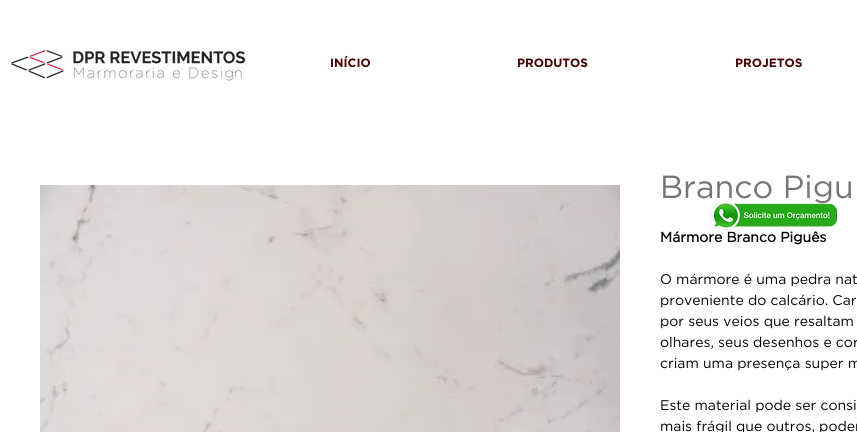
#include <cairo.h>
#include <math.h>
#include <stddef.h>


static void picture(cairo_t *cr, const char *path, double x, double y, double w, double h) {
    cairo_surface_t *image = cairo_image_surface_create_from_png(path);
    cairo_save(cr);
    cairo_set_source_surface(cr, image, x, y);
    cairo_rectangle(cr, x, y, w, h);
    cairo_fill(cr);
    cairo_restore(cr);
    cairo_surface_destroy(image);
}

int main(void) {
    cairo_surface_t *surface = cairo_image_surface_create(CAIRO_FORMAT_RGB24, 857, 432);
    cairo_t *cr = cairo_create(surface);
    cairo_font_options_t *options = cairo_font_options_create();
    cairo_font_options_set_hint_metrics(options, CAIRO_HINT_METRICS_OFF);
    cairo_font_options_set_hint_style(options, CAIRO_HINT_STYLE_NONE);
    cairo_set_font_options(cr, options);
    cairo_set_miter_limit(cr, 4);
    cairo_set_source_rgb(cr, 1, 1, 1);
    cairo_paint(cr);
    picture(cr, "img1.png", 11, 50, 235, 31);
    cairo_select_font_face(cr, "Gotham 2", CAIRO_FONT_SLANT_NORMAL, CAIRO_FONT_WEIGHT_BOLD);
    cairo_set_font_size(cr, 12);
    cairo_set_source_rgb(cr, 0.275, 0, 0.012);
    cairo_move_to(cr, 330, 67);
    cairo_show_text(cr, "INÍCIO");
    cairo_move_to(cr, 517, 67);
    cairo_show_text(cr, "PRODUTOS");
    cairo_move_to(cr, 735, 67);
    cairo_show_text(cr, "PROJETOS");
    picture(cr, "img2.png", 40, 185, 580, 247);
    cairo_select_font_face(cr, "Gotham", CAIRO_FONT_SLANT_NORMAL, CAIRO_FONT_WEIGHT_NORMAL);
    cairo_set_font_size(cr, 32);
    cairo_set_source_rgb(cr, 0.459, 0.459, 0.459);
    cairo_move_to(cr, 660, 198);
    cairo_show_text(cr, "Branco Pigu");
    cairo_select_font_face(cr, "Gotham", CAIRO_FONT_SLANT_NORMAL, CAIRO_FONT_WEIGHT_BOLD);
    cairo_set_font_size(cr, 14);
    cairo_set_source_rgb(cr, 0, 0, 0);
    cairo_move_to(cr, 660, 242);
    cairo_show_text(cr, "Mármore Branco Piguês");
    cairo_select_font_face(cr, "Gotham 2", CAIRO_FONT_SLANT_NORMAL, CAIRO_FONT_WEIGHT_NORMAL);
    cairo_move_to(cr, 660, 284);
    cairo_show_text(cr, "O mármore é uma pedra nat");
    cairo_move_to(cr, 660, 305);
    cairo_show_text(cr, "proveniente do calcário. Car");
    cairo_move_to(cr, 660, 326);
    cairo_show_text(cr, "por seus veios que resaltam");
    cairo_move_to(cr, 660, 347);
    cairo_show_text(cr, "olhares, seus desenhos e cor");
    cairo_move_to(cr, 660, 368);
    cairo_show_text(cr, "criam uma presença super m");
    cairo_move_to(cr, 660, 410);
    cairo_show_text(cr, "Este material pode ser consi");
    cairo_move_to(cr, 660, 431);
    cairo_show_text(cr, "mais frágil que outros, poden");
    picture(cr, "img3.png", 711, 201, 126, 29);
    cairo_surface_write_to_png(surface, "page.png");
    cairo_font_options_destroy(options);
    cairo_destroy(cr);
    cairo_surface_destroy(surface);
    return 0;
}
